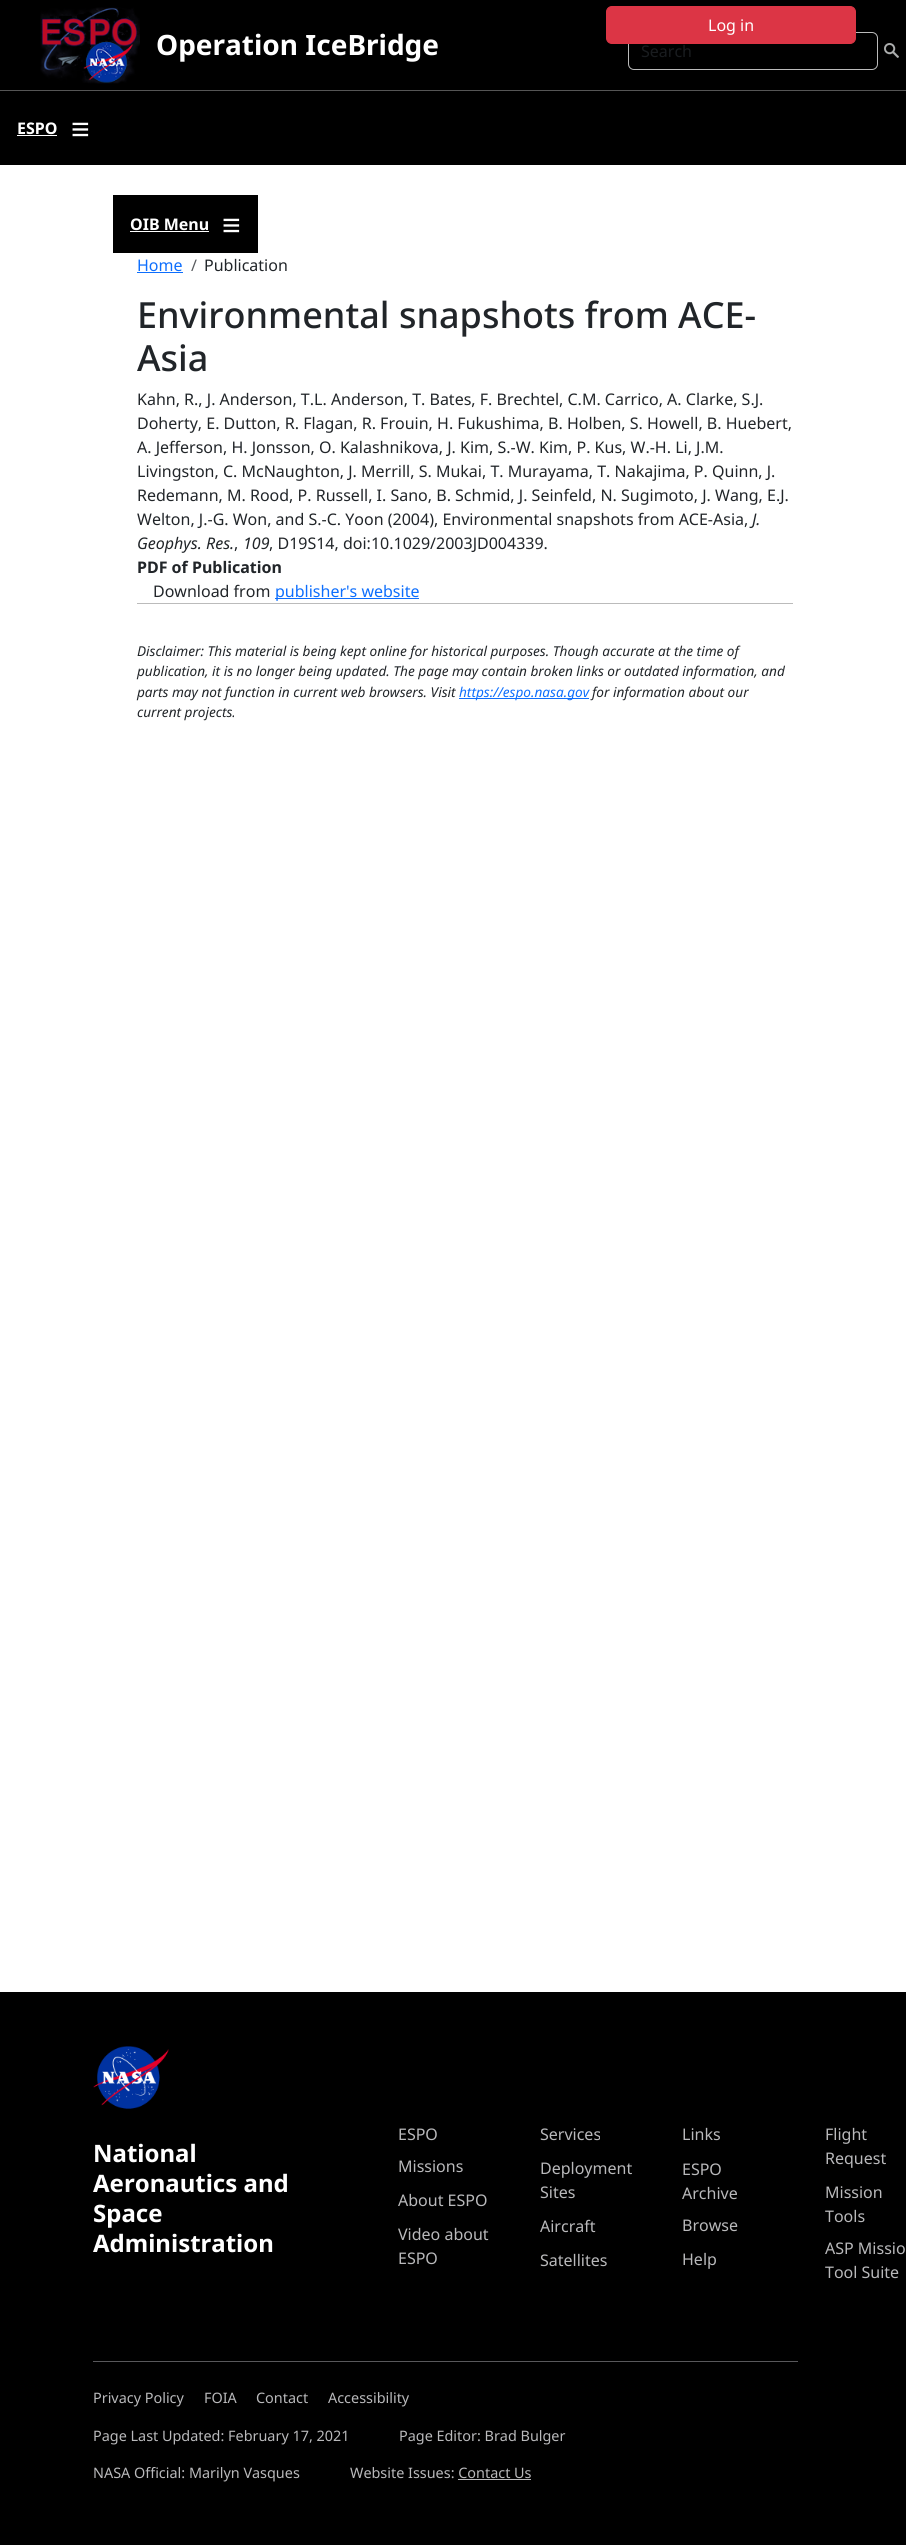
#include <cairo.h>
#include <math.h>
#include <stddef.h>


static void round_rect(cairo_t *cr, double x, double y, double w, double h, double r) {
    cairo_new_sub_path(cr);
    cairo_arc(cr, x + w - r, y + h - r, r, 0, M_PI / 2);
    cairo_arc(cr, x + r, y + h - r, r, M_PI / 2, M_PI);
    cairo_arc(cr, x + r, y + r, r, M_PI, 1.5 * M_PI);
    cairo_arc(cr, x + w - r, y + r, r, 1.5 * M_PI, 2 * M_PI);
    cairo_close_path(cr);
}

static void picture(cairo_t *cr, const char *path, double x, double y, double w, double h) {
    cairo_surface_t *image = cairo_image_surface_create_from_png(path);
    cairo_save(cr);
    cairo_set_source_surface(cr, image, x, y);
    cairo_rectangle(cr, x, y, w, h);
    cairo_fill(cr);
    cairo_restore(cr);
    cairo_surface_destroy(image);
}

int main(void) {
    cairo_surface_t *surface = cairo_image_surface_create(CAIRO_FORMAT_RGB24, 906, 2545);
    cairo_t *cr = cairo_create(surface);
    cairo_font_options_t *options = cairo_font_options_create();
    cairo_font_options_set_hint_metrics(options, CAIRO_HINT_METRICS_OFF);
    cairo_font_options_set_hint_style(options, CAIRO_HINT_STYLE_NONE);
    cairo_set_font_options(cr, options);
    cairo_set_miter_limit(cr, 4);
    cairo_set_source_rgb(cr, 1, 1, 1);
    cairo_paint(cr);
    cairo_set_source_rgb(cr, 0, 0, 0);
    cairo_rectangle(cr, 0, 0, 906, 90);
    cairo_fill(cr);
    round_rect(cr, 628.5, 32.5, 249, 37, 5.5);
    cairo_set_source_rgb(cr, 0.733, 0.733, 0.733);
    cairo_set_line_width(cr, 1);
    cairo_stroke(cr);
    cairo_set_source_rgb(cr, 0.863, 0.208, 0.271);
    round_rect(cr, 606.5, 6.5, 249, 37, 5.5);
    cairo_fill_preserve(cr);
    cairo_stroke(cr);
    cairo_select_font_face(cr, "Noto Sans", CAIRO_FONT_SLANT_NORMAL, CAIRO_FONT_WEIGHT_NORMAL);
    cairo_set_font_size(cr, 16);
    cairo_set_source_rgb(cr, 1, 1, 1);
    cairo_move_to(cr, 708, 31);
    cairo_show_text(cr, "Log in");
    picture(cr, "img1.png", 40, 7, 100, 77);
    cairo_select_font_face(cr, "Noto Sans", CAIRO_FONT_SLANT_NORMAL, CAIRO_FONT_WEIGHT_BOLD);
    cairo_set_font_size(cr, 28);
    cairo_move_to(cr, 156, 55);
    cairo_show_text(cr, "Operation IceBridge");
    cairo_select_font_face(cr, "Noto Sans", CAIRO_FONT_SLANT_NORMAL, CAIRO_FONT_WEIGHT_NORMAL);
    cairo_set_font_size(cr, 16);
    cairo_set_source_rgb(cr, 0.098, 0.11, 0.122);
    cairo_move_to(cr, 641, 57);
    cairo_show_text(cr, "Search");
    picture(cr, "img2.png", 884, 43, 15, 15);
    cairo_set_source_rgb(cr, 0, 0, 0);
    cairo_rectangle(cr, 0, 91, 906, 74);
    cairo_fill(cr);
    cairo_set_source_rgb(cr, 0.333, 0.333, 0.333);
    cairo_rectangle(cr, 0, 90, 906, 1);
    cairo_fill(cr);
    cairo_select_font_face(cr, "Noto Sans", CAIRO_FONT_SLANT_NORMAL, CAIRO_FONT_WEIGHT_BOLD);
    cairo_set_source_rgb(cr, 1, 1, 1);
    cairo_move_to(cr, 17, 134);
    cairo_show_text(cr, "ESPO");
    cairo_rectangle(cr, 17, 135, 40, 1);
    cairo_fill(cr);
    cairo_select_font_face(cr, "Liberation Sans", CAIRO_FONT_SLANT_NORMAL, CAIRO_FONT_WEIGHT_BOLD);
    cairo_set_font_size(cr, 32);
    cairo_move_to(cr, 71, 140);
    cairo_show_text(cr, "≡");
    cairo_set_source_rgb(cr, 0, 0, 0);
    cairo_rectangle(cr, 113, 195, 145, 58);
    cairo_fill(cr);
    cairo_select_font_face(cr, "Noto Sans", CAIRO_FONT_SLANT_NORMAL, CAIRO_FONT_WEIGHT_BOLD);
    cairo_set_font_size(cr, 16);
    cairo_set_source_rgb(cr, 1, 1, 1);
    cairo_move_to(cr, 130, 230);
    cairo_show_text(cr, "OIB Menu");
    cairo_rectangle(cr, 130, 231, 79, 1);
    cairo_fill(cr);
    cairo_select_font_face(cr, "Liberation Sans", CAIRO_FONT_SLANT_NORMAL, CAIRO_FONT_WEIGHT_BOLD);
    cairo_set_font_size(cr, 32);
    cairo_move_to(cr, 222, 236);
    cairo_show_text(cr, "≡");
    cairo_select_font_face(cr, "Noto Sans", CAIRO_FONT_SLANT_NORMAL, CAIRO_FONT_WEIGHT_NORMAL);
    cairo_set_font_size(cr, 16);
    cairo_set_source_rgb(cr, 0.051, 0.431, 0.992);
    cairo_move_to(cr, 137, 271);
    cairo_show_text(cr, "Home");
    cairo_rectangle(cr, 137, 272, 46, 1);
    cairo_fill(cr);
    cairo_set_source_rgb(cr, 0.349, 0.361, 0.373);
    cairo_move_to(cr, 191, 271);
    cairo_show_text(cr, "/");
    cairo_set_source_rgb(cr, 0.129, 0.145, 0.161);
    cairo_move_to(cr, 204, 271);
    cairo_show_text(cr, "Publication");
    cairo_select_font_face(cr, "Noto Sans Medium", CAIRO_FONT_SLANT_NORMAL, CAIRO_FONT_WEIGHT_NORMAL);
    cairo_set_font_size(cr, 36);
    cairo_move_to(cr, 137, 328);
    cairo_show_text(cr, "Environmental snapshots from ACE-");
    cairo_move_to(cr, 137, 371);
    cairo_show_text(cr, "Asia");
    cairo_select_font_face(cr, "Noto Sans", CAIRO_FONT_SLANT_NORMAL, CAIRO_FONT_WEIGHT_NORMAL);
    cairo_set_font_size(cr, 16);
    cairo_move_to(cr, 137, 405);
    cairo_show_text(cr, "Kahn, R., J. Anderson, T.L. Anderson, T. Bates, F. Brechtel, C.M. Carrico, A. Clarke, S.J.");
    cairo_move_to(cr, 137, 429);
    cairo_show_text(cr, "Doherty, E. Dutton, R. Flagan, R. Frouin, H. Fukushima, B. Holben, S. Howell, B. Huebert,");
    cairo_move_to(cr, 137, 453);
    cairo_show_text(cr, "A. Jefferson, H. Jonsson, O. Kalashnikova, J. Kim, S.-W. Kim, P. Kus, W.-H. Li, J.M.");
    cairo_move_to(cr, 137, 477);
    cairo_show_text(cr, "Livingston, C. McNaughton, J. Merrill, S. Mukai, T. Murayama, T. Nakajima, P. Quinn, J.");
    cairo_move_to(cr, 137, 501);
    cairo_show_text(cr, "Redemann, M. Rood, P. Russell, I. Sano, B. Schmid, J. Seinfeld, N. Sugimoto, J. Wang, E.J.");
    cairo_move_to(cr, 137, 525);
    cairo_show_text(cr, "Welton, J.-G. Won, and S.-C. Yoon (2004), Environmental snapshots from ACE-Asia,");
    cairo_select_font_face(cr, "Noto Sans", CAIRO_FONT_SLANT_ITALIC, CAIRO_FONT_WEIGHT_NORMAL);
    cairo_move_to(cr, 752, 525);
    cairo_show_text(cr, "J.");
    cairo_move_to(cr, 137, 549);
    cairo_show_text(cr, "Geophys. Res.");
    cairo_select_font_face(cr, "Noto Sans", CAIRO_FONT_SLANT_NORMAL, CAIRO_FONT_WEIGHT_NORMAL);
    cairo_move_to(cr, 234, 549);
    cairo_show_text(cr, ",");
    cairo_select_font_face(cr, "Noto Sans", CAIRO_FONT_SLANT_ITALIC, CAIRO_FONT_WEIGHT_NORMAL);
    cairo_move_to(cr, 243, 549);
    cairo_show_text(cr, "109");
    cairo_select_font_face(cr, "Noto Sans", CAIRO_FONT_SLANT_NORMAL, CAIRO_FONT_WEIGHT_NORMAL);
    cairo_move_to(cr, 269, 549);
    cairo_show_text(cr, ", D19S14, doi:10.1029/2003JD004339.");
    cairo_select_font_face(cr, "Noto Sans", CAIRO_FONT_SLANT_NORMAL, CAIRO_FONT_WEIGHT_BOLD);
    cairo_move_to(cr, 137, 573);
    cairo_show_text(cr, "PDF of Publication");
    cairo_select_font_face(cr, "Noto Sans", CAIRO_FONT_SLANT_NORMAL, CAIRO_FONT_WEIGHT_NORMAL);
    cairo_move_to(cr, 153, 597);
    cairo_show_text(cr, "Download from");
    cairo_set_source_rgb(cr, 0.051, 0.431, 0.992);
    cairo_rectangle(cr, 275, 598, 144, 1);
    cairo_fill(cr);
    cairo_move_to(cr, 275, 597);
    cairo_show_text(cr, "publisher's website");
    cairo_set_source_rgb(cr, 0.733, 0.733, 0.733);
    cairo_rectangle(cr, 137, 603, 656, 1);
    cairo_fill(cr);
    cairo_select_font_face(cr, "Noto Sans", CAIRO_FONT_SLANT_ITALIC, CAIRO_FONT_WEIGHT_NORMAL);
    cairo_set_font_size(cr, 13.6);
    cairo_set_source_rgb(cr, 0.129, 0.145, 0.161);
    cairo_move_to(cr, 137, 656);
    cairo_show_text(cr, "Disclaimer: This material is being kept online for historical purposes. Though accurate at the time of");
    cairo_move_to(cr, 137, 676);
    cairo_show_text(cr, "publication, it is no longer being updated. The page may contain broken links or outdated information, and");
    cairo_move_to(cr, 137, 697);
    cairo_show_text(cr, "parts may not function in current web browsers. Visit");
    cairo_set_source_rgb(cr, 0.051, 0.431, 0.992);
    cairo_rectangle(cr, 459, 698, 130, 1);
    cairo_fill(cr);
    cairo_move_to(cr, 459, 697);
    cairo_show_text(cr, "https://espo.nasa.gov");
    cairo_set_source_rgb(cr, 0.129, 0.145, 0.161);
    cairo_move_to(cr, 592, 697);
    cairo_show_text(cr, "for information about our");
    cairo_move_to(cr, 137, 717);
    cairo_show_text(cr, "current projects.");
    cairo_set_source_rgb(cr, 0, 0, 0);
    cairo_rectangle(cr, 0, 1992, 906, 553);
    cairo_fill(cr);
    picture(cr, "img3.png", 93, 2046, 76, 63);
    cairo_select_font_face(cr, "Noto Sans", CAIRO_FONT_SLANT_NORMAL, CAIRO_FONT_WEIGHT_BOLD);
    cairo_set_font_size(cr, 24);
    cairo_set_source_rgb(cr, 1, 1, 1);
    cairo_move_to(cr, 93, 2162);
    cairo_show_text(cr, "National");
    cairo_move_to(cr, 93, 2192);
    cairo_show_text(cr, "Aeronautics and");
    cairo_move_to(cr, 93, 2222);
    cairo_show_text(cr, "Space");
    cairo_move_to(cr, 93, 2252);
    cairo_show_text(cr, "Administration");
    cairo_select_font_face(cr, "Noto Sans", CAIRO_FONT_SLANT_NORMAL, CAIRO_FONT_WEIGHT_NORMAL);
    cairo_set_font_size(cr, 16);
    cairo_set_source_rgb(cr, 0.725, 0.725, 0.733);
    cairo_move_to(cr, 540, 2140);
    cairo_show_text(cr, "Services");
    cairo_move_to(cr, 682, 2140);
    cairo_show_text(cr, "Links");
    cairo_move_to(cr, 398, 2172);
    cairo_show_text(cr, "Missions");
    cairo_move_to(cr, 540, 2174);
    cairo_show_text(cr, "Deployment");
    cairo_move_to(cr, 540, 2198);
    cairo_show_text(cr, "Sites");
    cairo_move_to(cr, 398, 2206);
    cairo_show_text(cr, "About ESPO");
    cairo_move_to(cr, 398, 2240);
    cairo_show_text(cr, "Video about");
    cairo_move_to(cr, 398, 2264);
    cairo_show_text(cr, "ESPO");
    cairo_move_to(cr, 540, 2232);
    cairo_show_text(cr, "Aircraft");
    cairo_move_to(cr, 540, 2266);
    cairo_show_text(cr, "Satellites");
    cairo_move_to(cr, 398, 2140);
    cairo_show_text(cr, "ESPO");
    cairo_move_to(cr, 825, 2140);
    cairo_show_text(cr, "Flight");
    cairo_move_to(cr, 825, 2164);
    cairo_show_text(cr, "Request");
    cairo_move_to(cr, 682, 2175);
    cairo_show_text(cr, "ESPO");
    cairo_move_to(cr, 682, 2199);
    cairo_show_text(cr, "Archive");
    cairo_move_to(cr, 682, 2231);
    cairo_show_text(cr, "Browse");
    cairo_move_to(cr, 682, 2265);
    cairo_show_text(cr, "Help");
    cairo_move_to(cr, 825, 2198);
    cairo_show_text(cr, "Mission");
    cairo_move_to(cr, 825, 2222);
    cairo_show_text(cr, "Tools");
    cairo_move_to(cr, 825, 2254);
    cairo_show_text(cr, "ASP Missio");
    cairo_move_to(cr, 825, 2278);
    cairo_show_text(cr, "Tool Suite");
    cairo_set_source_rgb(cr, 0.345, 0.345, 0.357);
    cairo_rectangle(cr, 93, 2361, 705, 1);
    cairo_fill(cr);
    cairo_set_font_size(cr, 14.4);
    cairo_set_source_rgb(cr, 0.725, 0.725, 0.733);
    cairo_move_to(cr, 93, 2403);
    cairo_show_text(cr, "Privacy Policy");
    cairo_move_to(cr, 204, 2403);
    cairo_show_text(cr, "FOIA");
    cairo_move_to(cr, 256, 2403);
    cairo_show_text(cr, "Contact");
    cairo_move_to(cr, 328, 2403);
    cairo_show_text(cr, "Accessibility");
    cairo_move_to(cr, 93, 2441);
    cairo_show_text(cr, "Page Last Updated: February 17, 2021");
    cairo_move_to(cr, 399, 2441);
    cairo_show_text(cr, "Page Editor: Brad Bulger");
    cairo_move_to(cr, 93, 2478);
    cairo_show_text(cr, "NASA Official: Marilyn Vasques");
    cairo_move_to(cr, 350, 2478);
    cairo_show_text(cr, "Website Issues: Contact Us");
    cairo_rectangle(cr, 458, 2479, 73, 1);
    cairo_fill(cr);
    cairo_surface_write_to_png(surface, "page.png");
    cairo_font_options_destroy(options);
    cairo_destroy(cr);
    cairo_surface_destroy(surface);
    return 0;
}
